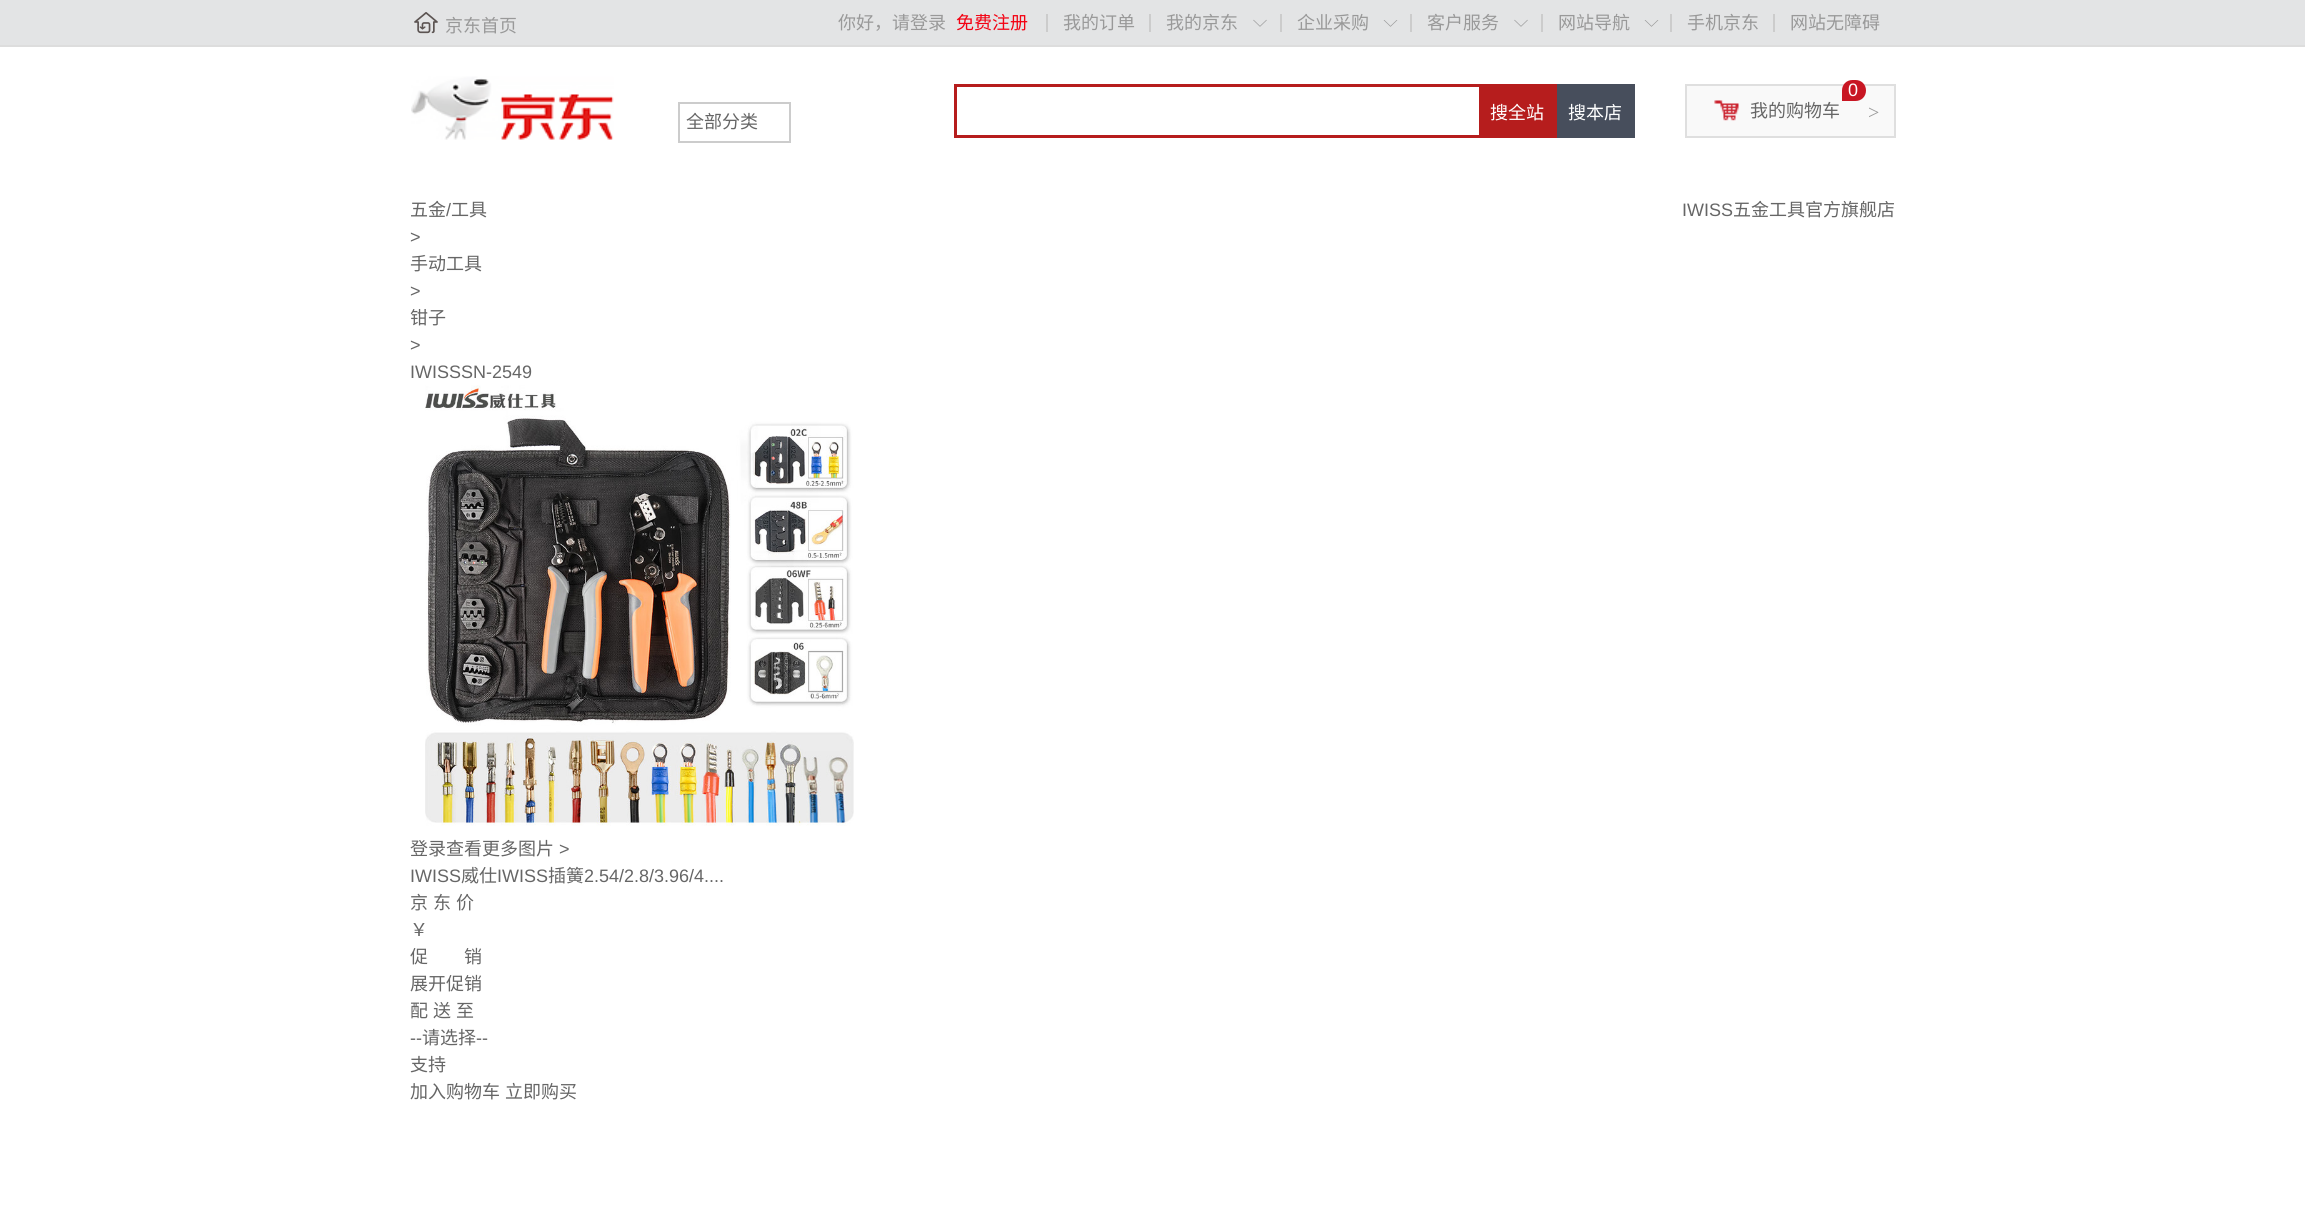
#include <cairo.h>
#include <math.h>
#include <stddef.h>


static void spaced_text(cairo_t *cr, double x, double y, const char *s, double letter, double word) {
    cairo_move_to(cr, x, y);
    while (*s) {
        char ch[5] = {0};
        int n = 0;
        do ch[n++] = *s++; while ((*s & 0xC0) == 0x80);
        cairo_show_text(cr, ch);
        cairo_rel_move_to(cr, letter + word * (*ch == ' '), 0);
    }
}

static void picture(cairo_t *cr, const char *path, double x, double y, double w, double h) {
    cairo_surface_t *image = cairo_image_surface_create_from_png(path);
    cairo_save(cr);
    cairo_set_source_surface(cr, image, x, y);
    cairo_rectangle(cr, x, y, w, h);
    cairo_fill(cr);
    cairo_restore(cr);
    cairo_surface_destroy(image);
}

int main(void) {
    cairo_surface_t *surface = cairo_image_surface_create(CAIRO_FORMAT_RGB24, 2305, 1214);
    cairo_t *cr = cairo_create(surface);
    cairo_font_options_t *options = cairo_font_options_create();
    cairo_font_options_set_hint_metrics(options, CAIRO_HINT_METRICS_OFF);
    cairo_font_options_set_hint_style(options, CAIRO_HINT_STYLE_NONE);
    cairo_set_font_options(cr, options);
    cairo_set_miter_limit(cr, 4);
    cairo_set_source_rgb(cr, 1, 1, 1);
    cairo_paint(cr);
    cairo_set_source_rgb(cr, 0.89, 0.894, 0.898);
    cairo_rectangle(cr, 0, 0, 2305, 45);
    cairo_fill(cr);
    cairo_set_source_rgb(cr, 0.867, 0.867, 0.867);
    cairo_rectangle(cr, 0, 45, 2305, 2);
    cairo_fill(cr);
    picture(cr, "img1.png", 414, 12, 24, 22);
    cairo_select_font_face(cr, "Noto Sans CJK SC", CAIRO_FONT_SLANT_NORMAL, CAIRO_FONT_WEIGHT_NORMAL);
    cairo_set_font_size(cr, 18);
    cairo_set_source_rgb(cr, 0.6, 0.6, 0.6);
    cairo_move_to(cr, 445, 32);
    cairo_show_text(cr, "京东首页");
    cairo_move_to(cr, 838, 29);
    cairo_show_text(cr, "你好，请登录");
    cairo_set_source_rgb(cr, 0.953, 0.008, 0.075);
    cairo_move_to(cr, 956, 29);
    cairo_show_text(cr, "免费注册");
    cairo_set_source_rgb(cr, 0.8, 0.8, 0.8);
    cairo_rectangle(cr, 1046, 14, 2, 18);
    cairo_fill(cr);
    cairo_set_source_rgb(cr, 0.6, 0.6, 0.6);
    cairo_move_to(cr, 1063, 29);
    cairo_show_text(cr, "我的订单");
    cairo_set_source_rgb(cr, 0.8, 0.8, 0.8);
    cairo_rectangle(cr, 1149, 14, 2, 18);
    cairo_fill(cr);
    cairo_set_source_rgb(cr, 0.6, 0.6, 0.6);
    cairo_move_to(cr, 1166, 29);
    cairo_show_text(cr, "我的京东");
    picture(cr, "img2.png", 1253, 19, 14, 8);
    cairo_set_source_rgb(cr, 0.8, 0.8, 0.8);
    cairo_rectangle(cr, 1280, 14, 2, 18);
    cairo_fill(cr);
    cairo_set_source_rgb(cr, 0.6, 0.6, 0.6);
    cairo_move_to(cr, 1297, 29);
    cairo_show_text(cr, "企业采购");
    picture(cr, "img3.png", 1383, 20, 15, 7);
    cairo_set_source_rgb(cr, 0.8, 0.8, 0.8);
    cairo_rectangle(cr, 1410, 14, 2, 18);
    cairo_fill(cr);
    cairo_set_source_rgb(cr, 0.6, 0.6, 0.6);
    cairo_move_to(cr, 1427, 29);
    cairo_show_text(cr, "客户服务");
    picture(cr, "img2.png", 1514, 19, 14, 8);
    cairo_set_source_rgb(cr, 0.8, 0.8, 0.8);
    cairo_rectangle(cr, 1541, 14, 2, 18);
    cairo_fill(cr);
    cairo_set_source_rgb(cr, 0.6, 0.6, 0.6);
    cairo_move_to(cr, 1558, 29);
    cairo_show_text(cr, "网站导航");
    picture(cr, "img3.png", 1644, 20, 15, 7);
    cairo_set_source_rgb(cr, 0.8, 0.8, 0.8);
    cairo_rectangle(cr, 1670, 14, 2, 18);
    cairo_fill(cr);
    cairo_set_source_rgb(cr, 0.6, 0.6, 0.6);
    cairo_move_to(cr, 1687, 29);
    cairo_show_text(cr, "手机京东");
    cairo_set_source_rgb(cr, 0.8, 0.8, 0.8);
    cairo_rectangle(cr, 1773, 14, 2, 18);
    cairo_fill(cr);
    cairo_set_source_rgb(cr, 0.6, 0.6, 0.6);
    cairo_move_to(cr, 1790, 29);
    cairo_show_text(cr, "网站无障碍");
    picture(cr, "img4.png", 411, 76, 203, 64);
    cairo_rectangle(cr, 679, 103, 111, 39);
    cairo_set_source_rgb(cr, 0.8, 0.8, 0.8);
    cairo_stroke(cr);
    cairo_set_source_rgb(cr, 0.4, 0.4, 0.4);
    cairo_move_to(cr, 686, 128);
    cairo_show_text(cr, "全部分类");
    cairo_set_source_rgb(cr, 0.714, 0.114, 0.114);
    cairo_rectangle(cr, 954, 84, 525, 3);
    cairo_fill(cr);
    cairo_rectangle(cr, 954, 135, 525, 3);
    cairo_fill(cr);
    cairo_rectangle(cr, 954, 84, 3, 54);
    cairo_fill(cr);
    cairo_rectangle(cr, 1479, 84, 78, 54);
    cairo_fill(cr);
    cairo_set_source_rgb(cr, 1, 1, 1);
    cairo_move_to(cr, 1490, 119);
    cairo_show_text(cr, "搜全站");
    cairo_set_source_rgb(cr, 0.278, 0.306, 0.361);
    cairo_rectangle(cr, 1557, 84, 78, 54);
    cairo_fill(cr);
    cairo_set_source_rgb(cr, 1, 1, 1);
    cairo_move_to(cr, 1568, 119);
    cairo_show_text(cr, "搜本店");
    cairo_set_source_rgb(cr, 0.976, 0.976, 0.976);
    cairo_rectangle(cr, 1686, 85, 209, 52);
    cairo_fill_preserve(cr);
    cairo_set_source_rgb(cr, 0.875, 0.875, 0.875);
    cairo_stroke(cr);
    cairo_set_source_rgb(cr, 0.784, 0.086, 0.137);
    cairo_new_path(cr);
    cairo_move_to(cr, 1852.5, 80);
    cairo_line_to(cr, 1855.5, 80);
    cairo_curve_to(cr, 1861.5, 80, 1866, 84.5, 1866, 90.5);
    cairo_curve_to(cr, 1866, 96.5, 1861.5, 101, 1855.5, 101);
    cairo_line_to(cr, 1842, 101);
    cairo_line_to(cr, 1842, 90.5);
    cairo_curve_to(cr, 1842, 84.5, 1846.5, 80, 1852.5, 80);
    cairo_close_path(cr);
    cairo_fill(cr);
    cairo_select_font_face(cr, "Liberation Sans", CAIRO_FONT_SLANT_NORMAL, CAIRO_FONT_WEIGHT_NORMAL);
    cairo_set_source_rgb(cr, 1, 1, 1);
    cairo_move_to(cr, 1848, 96);
    cairo_show_text(cr, "0");
    picture(cr, "img5.png", 1714, 100, 25, 21);
    cairo_select_font_face(cr, "Noto Sans CJK SC", CAIRO_FONT_SLANT_NORMAL, CAIRO_FONT_WEIGHT_NORMAL);
    cairo_set_source_rgb(cr, 0.4, 0.4, 0.4);
    cairo_move_to(cr, 1750, 117);
    cairo_show_text(cr, "我的购物车");
    cairo_select_font_face(cr, "Liberation Serif", CAIRO_FONT_SLANT_NORMAL, CAIRO_FONT_WEIGHT_NORMAL);
    cairo_set_font_size(cr, 20);
    cairo_set_source_rgb(cr, 0.6, 0.6, 0.6);
    cairo_move_to(cr, 1868, 119);
    cairo_show_text(cr, ">");
    cairo_select_font_face(cr, "Noto Sans CJK SC", CAIRO_FONT_SLANT_NORMAL, CAIRO_FONT_WEIGHT_NORMAL);
    cairo_set_font_size(cr, 18);
    cairo_set_source_rgb(cr, 0.4, 0.4, 0.4);
    cairo_move_to(cr, 410, 216);
    cairo_show_text(cr, "五金");
    cairo_select_font_face(cr, "Liberation Sans", CAIRO_FONT_SLANT_NORMAL, CAIRO_FONT_WEIGHT_NORMAL);
    cairo_move_to(cr, 446, 216);
    cairo_show_text(cr, "/");
    cairo_select_font_face(cr, "Noto Sans CJK SC", CAIRO_FONT_SLANT_NORMAL, CAIRO_FONT_WEIGHT_NORMAL);
    cairo_move_to(cr, 451, 216);
    cairo_show_text(cr, "工具");
    cairo_select_font_face(cr, "Liberation Sans", CAIRO_FONT_SLANT_NORMAL, CAIRO_FONT_WEIGHT_NORMAL);
    cairo_move_to(cr, 410, 243);
    cairo_show_text(cr, ">");
    cairo_select_font_face(cr, "Noto Sans CJK SC", CAIRO_FONT_SLANT_NORMAL, CAIRO_FONT_WEIGHT_NORMAL);
    cairo_move_to(cr, 410, 270);
    cairo_show_text(cr, "手动工具");
    cairo_select_font_face(cr, "Liberation Sans", CAIRO_FONT_SLANT_NORMAL, CAIRO_FONT_WEIGHT_NORMAL);
    cairo_move_to(cr, 410, 297);
    cairo_show_text(cr, ">");
    cairo_select_font_face(cr, "Noto Sans CJK SC", CAIRO_FONT_SLANT_NORMAL, CAIRO_FONT_WEIGHT_NORMAL);
    cairo_move_to(cr, 410, 324);
    cairo_show_text(cr, "钳子");
    cairo_select_font_face(cr, "Liberation Sans", CAIRO_FONT_SLANT_NORMAL, CAIRO_FONT_WEIGHT_NORMAL);
    cairo_move_to(cr, 410, 351);
    cairo_show_text(cr, ">");
    cairo_move_to(cr, 410, 378);
    cairo_show_text(cr, "IWISSSN-2549");
    cairo_move_to(cr, 1682, 216);
    cairo_show_text(cr, "IWISS");
    cairo_select_font_face(cr, "Noto Sans CJK SC", CAIRO_FONT_SLANT_NORMAL, CAIRO_FONT_WEIGHT_NORMAL);
    cairo_move_to(cr, 1733, 216);
    cairo_show_text(cr, "五金工具官方旗舰店");
    picture(cr, "img6.png", 425, 385, 429, 441);
    cairo_move_to(cr, 410, 855);
    cairo_show_text(cr, "登录查看更多图片");
    cairo_select_font_face(cr, "Liberation Sans", CAIRO_FONT_SLANT_NORMAL, CAIRO_FONT_WEIGHT_NORMAL);
    cairo_move_to(cr, 559, 855);
    cairo_show_text(cr, ">");
    cairo_move_to(cr, 410, 882);
    cairo_show_text(cr, "IWISS");
    cairo_select_font_face(cr, "Noto Sans CJK SC", CAIRO_FONT_SLANT_NORMAL, CAIRO_FONT_WEIGHT_NORMAL);
    cairo_move_to(cr, 461, 882);
    cairo_show_text(cr, "威仕");
    cairo_select_font_face(cr, "Liberation Sans", CAIRO_FONT_SLANT_NORMAL, CAIRO_FONT_WEIGHT_NORMAL);
    cairo_move_to(cr, 497, 882);
    cairo_show_text(cr, "IWISS");
    cairo_select_font_face(cr, "Noto Sans CJK SC", CAIRO_FONT_SLANT_NORMAL, CAIRO_FONT_WEIGHT_NORMAL);
    cairo_move_to(cr, 548, 882);
    cairo_show_text(cr, "插簧");
    cairo_select_font_face(cr, "Liberation Sans", CAIRO_FONT_SLANT_NORMAL, CAIRO_FONT_WEIGHT_NORMAL);
    cairo_move_to(cr, 584, 882);
    cairo_show_text(cr, "2.54/2.8/3.96/4....");
    cairo_select_font_face(cr, "Noto Sans CJK SC", CAIRO_FONT_SLANT_NORMAL, CAIRO_FONT_WEIGHT_NORMAL);
    spaced_text(cr, 410, 909, "京 东 价", 0, 1);
    cairo_move_to(cr, 410, 936);
    cairo_show_text(cr, "￥");
    cairo_move_to(cr, 410, 963);
    cairo_show_text(cr, "促　　销");
    cairo_move_to(cr, 410, 990);
    cairo_show_text(cr, "展开促销");
    spaced_text(cr, 410, 1017, "配 送 至", 0, 1);
    cairo_select_font_face(cr, "Liberation Sans", CAIRO_FONT_SLANT_NORMAL, CAIRO_FONT_WEIGHT_NORMAL);
    cairo_move_to(cr, 410, 1044);
    cairo_show_text(cr, "--");
    cairo_select_font_face(cr, "Noto Sans CJK SC", CAIRO_FONT_SLANT_NORMAL, CAIRO_FONT_WEIGHT_NORMAL);
    cairo_move_to(cr, 422, 1044);
    cairo_show_text(cr, "请选择");
    cairo_select_font_face(cr, "Liberation Sans", CAIRO_FONT_SLANT_NORMAL, CAIRO_FONT_WEIGHT_NORMAL);
    cairo_move_to(cr, 476, 1044);
    cairo_show_text(cr, "--");
    cairo_select_font_face(cr, "Noto Sans CJK SC", CAIRO_FONT_SLANT_NORMAL, CAIRO_FONT_WEIGHT_NORMAL);
    cairo_move_to(cr, 410, 1071);
    cairo_show_text(cr, "支持");
    cairo_move_to(cr, 410, 1098);
    cairo_show_text(cr, "加入购物车");
    cairo_move_to(cr, 505, 1098);
    cairo_show_text(cr, "立即购买");
    cairo_surface_write_to_png(surface, "page.png");
    cairo_font_options_destroy(options);
    cairo_destroy(cr);
    cairo_surface_destroy(surface);
    return 0;
}
